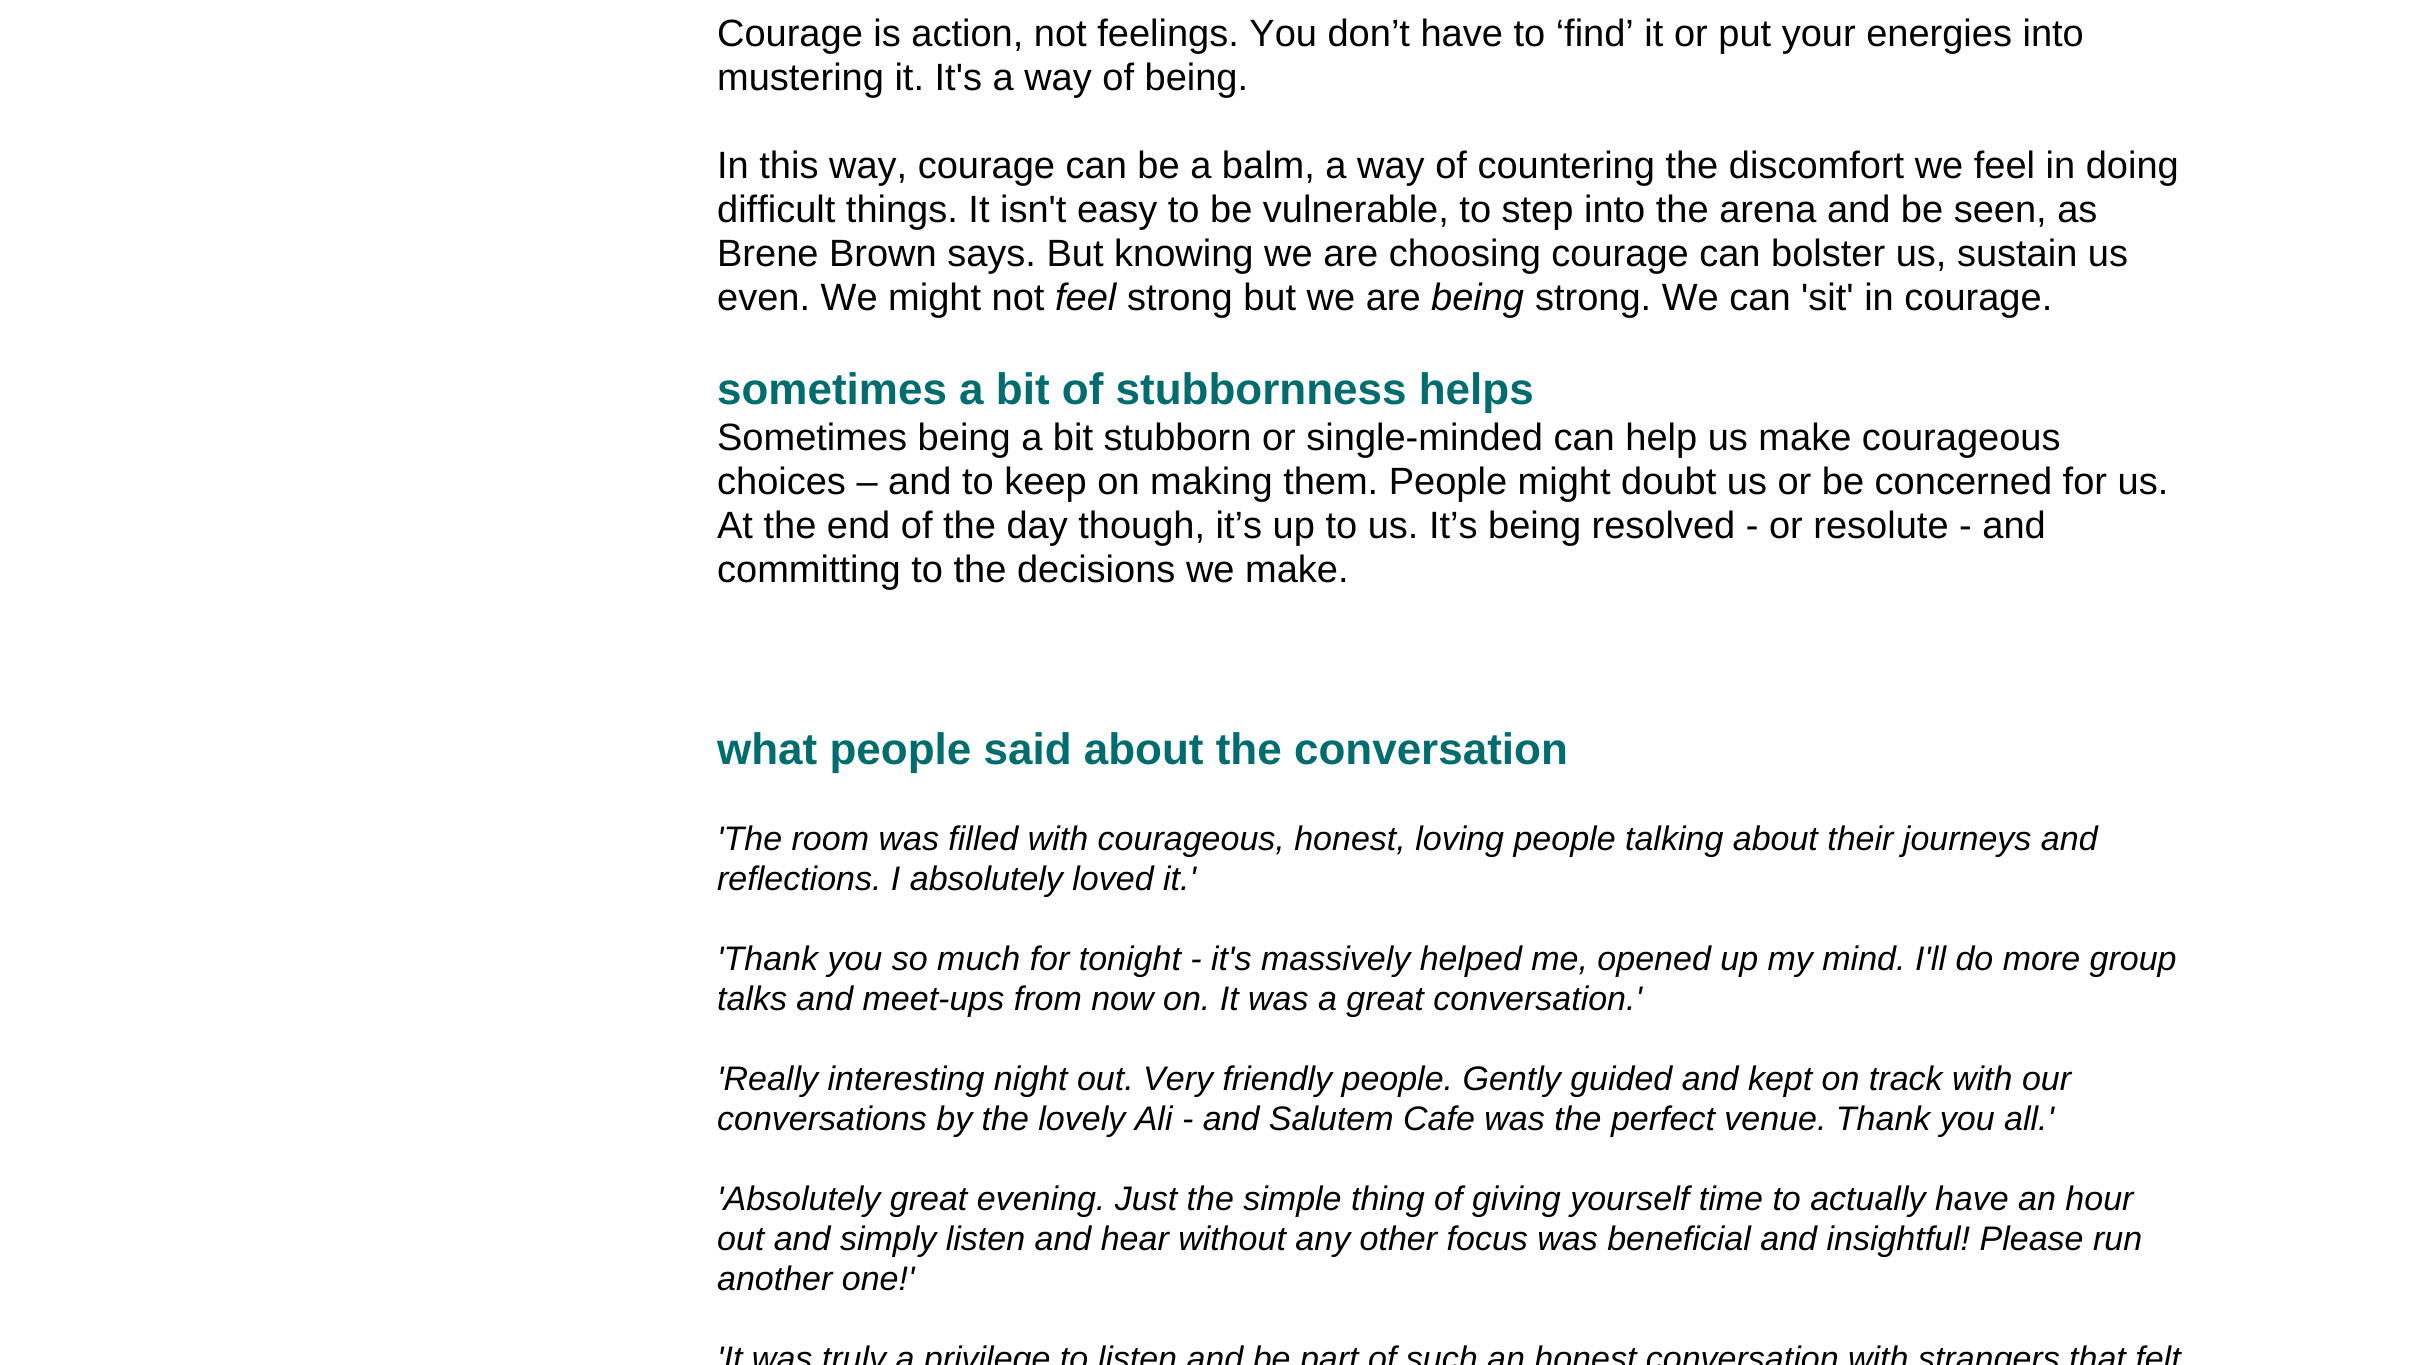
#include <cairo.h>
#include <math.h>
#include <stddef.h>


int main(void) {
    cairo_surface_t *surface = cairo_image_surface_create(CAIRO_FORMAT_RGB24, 2413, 1365);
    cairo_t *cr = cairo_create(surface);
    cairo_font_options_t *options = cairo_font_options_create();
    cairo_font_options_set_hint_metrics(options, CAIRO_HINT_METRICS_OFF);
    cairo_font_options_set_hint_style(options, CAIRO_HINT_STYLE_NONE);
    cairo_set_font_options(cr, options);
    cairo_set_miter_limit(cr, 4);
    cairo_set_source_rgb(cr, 1, 1, 1);
    cairo_paint(cr);
    cairo_select_font_face(cr, "Liberation Sans", CAIRO_FONT_SLANT_NORMAL, CAIRO_FONT_WEIGHT_NORMAL);
    cairo_set_font_size(cr, 38);
    cairo_set_source_rgb(cr, 0, 0, 0);
    cairo_move_to(cr, 717, 46);
    cairo_show_text(cr, "Courage is action, not feelings. You don’t have to ‘find’ it or put your energies into");
    cairo_move_to(cr, 717, 90);
    cairo_show_text(cr, "mustering it. It's a way of being.");
    cairo_move_to(cr, 717, 178);
    cairo_show_text(cr, "In this way, courage can be a balm, a way of countering the discomfort we feel in doing");
    cairo_move_to(cr, 717, 222);
    cairo_show_text(cr, "difficult things. It isn't easy to be vulnerable, to step into the arena and be seen, as");
    cairo_move_to(cr, 717, 266);
    cairo_show_text(cr, "Brene Brown says. But knowing we are choosing courage can bolster us, sustain us");
    cairo_move_to(cr, 717, 310);
    cairo_show_text(cr, "even. We might not");
    cairo_select_font_face(cr, "Liberation Sans", CAIRO_FONT_SLANT_ITALIC, CAIRO_FONT_WEIGHT_NORMAL);
    cairo_move_to(cr, 1055, 310);
    cairo_show_text(cr, "feel");
    cairo_select_font_face(cr, "Liberation Sans", CAIRO_FONT_SLANT_NORMAL, CAIRO_FONT_WEIGHT_NORMAL);
    cairo_move_to(cr, 1127, 310);
    cairo_show_text(cr, "strong but we are");
    cairo_select_font_face(cr, "Liberation Sans", CAIRO_FONT_SLANT_ITALIC, CAIRO_FONT_WEIGHT_NORMAL);
    cairo_move_to(cr, 1431, 310);
    cairo_show_text(cr, "being");
    cairo_select_font_face(cr, "Liberation Sans", CAIRO_FONT_SLANT_NORMAL, CAIRO_FONT_WEIGHT_NORMAL);
    cairo_move_to(cr, 1535, 310);
    cairo_show_text(cr, "strong. We can 'sit' in courage.");
    cairo_select_font_face(cr, "Liberation Sans", CAIRO_FONT_SLANT_NORMAL, CAIRO_FONT_WEIGHT_BOLD);
    cairo_set_font_size(cr, 44);
    cairo_set_source_rgb(cr, 0, 0.424, 0.427);
    cairo_move_to(cr, 717, 404);
    cairo_show_text(cr, "sometimes a bit of stubbornness helps");
    cairo_select_font_face(cr, "Liberation Sans", CAIRO_FONT_SLANT_NORMAL, CAIRO_FONT_WEIGHT_NORMAL);
    cairo_set_font_size(cr, 38);
    cairo_set_source_rgb(cr, 0, 0, 0);
    cairo_move_to(cr, 717, 450);
    cairo_show_text(cr, "Sometimes being a bit stubborn or single-minded can help us make courageous");
    cairo_move_to(cr, 717, 494);
    cairo_show_text(cr, "choices – and to keep on making them. People might doubt us or be concerned for us.");
    cairo_move_to(cr, 717, 538);
    cairo_show_text(cr, "At the end of the day though, it’s up to us. It’s being resolved - or resolute - and");
    cairo_move_to(cr, 717, 582);
    cairo_show_text(cr, "committing to the decisions we make.");
    cairo_select_font_face(cr, "Liberation Sans", CAIRO_FONT_SLANT_NORMAL, CAIRO_FONT_WEIGHT_BOLD);
    cairo_set_font_size(cr, 44);
    cairo_set_source_rgb(cr, 0, 0.424, 0.427);
    cairo_move_to(cr, 717, 764);
    cairo_show_text(cr, "what people said about the conversation");
    cairo_select_font_face(cr, "Liberation Sans", CAIRO_FONT_SLANT_ITALIC, CAIRO_FONT_WEIGHT_NORMAL);
    cairo_set_font_size(cr, 34);
    cairo_set_source_rgb(cr, 0, 0, 0);
    cairo_move_to(cr, 717, 850);
    cairo_show_text(cr, "'The room was filled with courageous, honest, loving people talking about their journeys and");
    cairo_move_to(cr, 717, 890);
    cairo_show_text(cr, "reflections. I absolutely loved it.'");
    cairo_move_to(cr, 717, 970);
    cairo_show_text(cr, "'Thank you so much for tonight - it's massively helped me, opened up my mind. I'll do more group");
    cairo_move_to(cr, 717, 1010);
    cairo_show_text(cr, "talks and meet-ups from now on. It was a great conversation.'");
    cairo_move_to(cr, 717, 1090);
    cairo_show_text(cr, "'Really interesting night out. Very friendly people. Gently guided and kept on track with our");
    cairo_move_to(cr, 717, 1130);
    cairo_show_text(cr, "conversations by the lovely Ali - and Salutem Cafe was the perfect venue. Thank you all.'");
    cairo_move_to(cr, 717, 1210);
    cairo_show_text(cr, "'Absolutely great evening. Just the simple thing of giving yourself time to actually have an hour");
    cairo_move_to(cr, 717, 1250);
    cairo_show_text(cr, "out and simply listen and hear without any other focus was beneficial and insightful! Please run");
    cairo_move_to(cr, 717, 1290);
    cairo_show_text(cr, "another one!'");
    cairo_move_to(cr, 717, 1370);
    cairo_show_text(cr, "'It was truly a privilege to listen and be part of such an honest conversation with strangers that felt");
    cairo_surface_write_to_png(surface, "page.png");
    cairo_font_options_destroy(options);
    cairo_destroy(cr);
    cairo_surface_destroy(surface);
    return 0;
}
